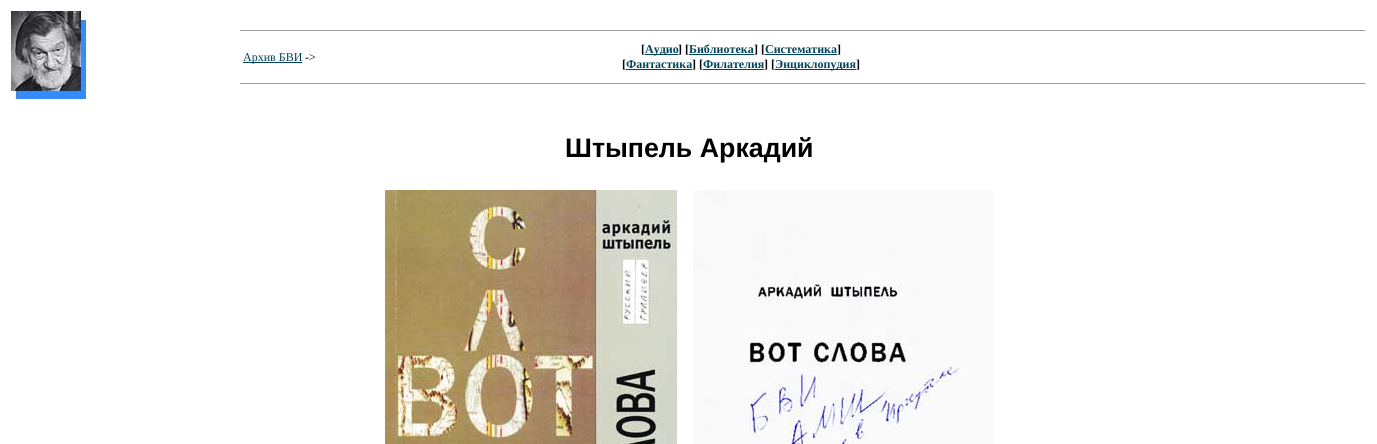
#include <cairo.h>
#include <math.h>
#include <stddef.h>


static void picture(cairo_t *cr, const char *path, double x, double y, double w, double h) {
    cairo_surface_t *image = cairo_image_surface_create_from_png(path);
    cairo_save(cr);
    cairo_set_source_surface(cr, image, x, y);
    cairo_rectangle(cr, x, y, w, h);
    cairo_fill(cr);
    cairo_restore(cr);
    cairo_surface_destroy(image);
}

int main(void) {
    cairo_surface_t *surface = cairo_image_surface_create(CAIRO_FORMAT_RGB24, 1377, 444);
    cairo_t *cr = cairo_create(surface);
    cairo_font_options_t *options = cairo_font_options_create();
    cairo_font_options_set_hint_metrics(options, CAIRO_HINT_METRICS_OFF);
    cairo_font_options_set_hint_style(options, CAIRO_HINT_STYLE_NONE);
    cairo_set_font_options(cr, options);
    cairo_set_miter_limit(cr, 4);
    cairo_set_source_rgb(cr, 1, 1, 1);
    cairo_paint(cr);
    picture(cr, "img1.png", 11, 11, 75, 88);
    cairo_set_source_rgb(cr, 0.624, 0.624, 0.624);
    cairo_rectangle(cr, 240, 30, 1126, 1);
    cairo_fill(cr);
    cairo_set_source_rgb(cr, 0.933, 0.933, 0.933);
    cairo_rectangle(cr, 1365, 30, 1, 1);
    cairo_fill(cr);
    cairo_set_source_rgb(cr, 0.004, 0.267, 0.361);
    cairo_rectangle(cr, 243, 62, 59, 1);
    cairo_fill(cr);
    cairo_select_font_face(cr, "Liberation Serif", CAIRO_FONT_SLANT_NORMAL, CAIRO_FONT_WEIGHT_NORMAL);
    cairo_set_font_size(cr, 12);
    cairo_move_to(cr, 243, 61);
    cairo_show_text(cr, "Архив БВИ");
    cairo_set_source_rgb(cr, 0, 0, 0);
    cairo_move_to(cr, 305, 61);
    cairo_show_text(cr, "->");
    cairo_select_font_face(cr, "Liberation Serif", CAIRO_FONT_SLANT_NORMAL, CAIRO_FONT_WEIGHT_BOLD);
    cairo_move_to(cr, 641, 53);
    cairo_show_text(cr, "[");
    cairo_set_source_rgb(cr, 0.004, 0.267, 0.361);
    cairo_rectangle(cr, 645, 54, 33, 1);
    cairo_fill(cr);
    cairo_move_to(cr, 645, 53);
    cairo_show_text(cr, "Аудио");
    cairo_set_source_rgb(cr, 0, 0, 0);
    cairo_move_to(cr, 678, 53);
    cairo_show_text(cr, "] [");
    cairo_set_source_rgb(cr, 0.004, 0.267, 0.361);
    cairo_rectangle(cr, 689, 54, 65, 1);
    cairo_fill(cr);
    cairo_move_to(cr, 689, 53);
    cairo_show_text(cr, "Библиотека");
    cairo_set_source_rgb(cr, 0, 0, 0);
    cairo_move_to(cr, 754, 53);
    cairo_show_text(cr, "] [");
    cairo_set_source_rgb(cr, 0.004, 0.267, 0.361);
    cairo_rectangle(cr, 765, 54, 72, 1);
    cairo_fill(cr);
    cairo_move_to(cr, 765, 53);
    cairo_show_text(cr, "Систематика");
    cairo_set_source_rgb(cr, 0, 0, 0);
    cairo_move_to(cr, 837, 53);
    cairo_show_text(cr, "]");
    cairo_move_to(cr, 622, 68);
    cairo_show_text(cr, "[");
    cairo_set_source_rgb(cr, 0.004, 0.267, 0.361);
    cairo_rectangle(cr, 626, 69, 66, 1);
    cairo_fill(cr);
    cairo_move_to(cr, 626, 68);
    cairo_show_text(cr, "Фантастика");
    cairo_set_source_rgb(cr, 0, 0, 0);
    cairo_move_to(cr, 692, 68);
    cairo_show_text(cr, "] [");
    cairo_set_source_rgb(cr, 0.004, 0.267, 0.361);
    cairo_rectangle(cr, 703, 69, 61, 1);
    cairo_fill(cr);
    cairo_move_to(cr, 703, 68);
    cairo_show_text(cr, "Филателия");
    cairo_set_source_rgb(cr, 0, 0, 0);
    cairo_move_to(cr, 764, 68);
    cairo_show_text(cr, "] [");
    cairo_set_source_rgb(cr, 0.004, 0.267, 0.361);
    cairo_rectangle(cr, 775, 69, 81, 1);
    cairo_fill(cr);
    cairo_move_to(cr, 775, 68);
    cairo_show_text(cr, "Энциклопудия");
    cairo_set_source_rgb(cr, 0, 0, 0);
    cairo_move_to(cr, 856, 68);
    cairo_show_text(cr, "]");
    cairo_set_source_rgb(cr, 0.624, 0.624, 0.624);
    cairo_rectangle(cr, 240, 83, 1126, 1);
    cairo_fill(cr);
    cairo_set_source_rgb(cr, 0.933, 0.933, 0.933);
    cairo_rectangle(cr, 1365, 83, 1, 1);
    cairo_fill(cr);
    cairo_select_font_face(cr, "Liberation Sans", CAIRO_FONT_SLANT_NORMAL, CAIRO_FONT_WEIGHT_BOLD);
    cairo_set_font_size(cr, 26.75);
    cairo_set_source_rgb(cr, 0, 0, 0);
    cairo_move_to(cr, 565, 157);
    cairo_show_text(cr, "Штыпель Аркадий");
    picture(cr, "img2.png", 385, 190, 292, 254);
    picture(cr, "img3.png", 693, 190, 300, 254);
    cairo_surface_write_to_png(surface, "page.png");
    cairo_font_options_destroy(options);
    cairo_destroy(cr);
    cairo_surface_destroy(surface);
    return 0;
}
